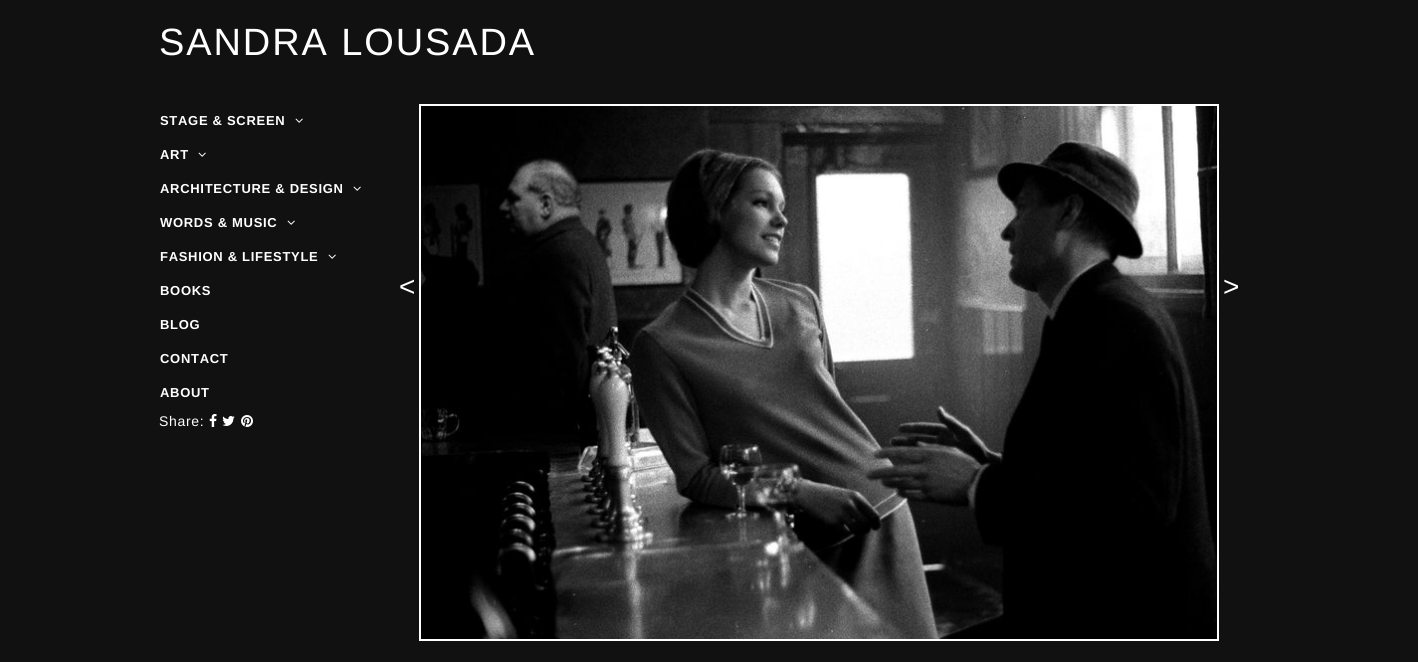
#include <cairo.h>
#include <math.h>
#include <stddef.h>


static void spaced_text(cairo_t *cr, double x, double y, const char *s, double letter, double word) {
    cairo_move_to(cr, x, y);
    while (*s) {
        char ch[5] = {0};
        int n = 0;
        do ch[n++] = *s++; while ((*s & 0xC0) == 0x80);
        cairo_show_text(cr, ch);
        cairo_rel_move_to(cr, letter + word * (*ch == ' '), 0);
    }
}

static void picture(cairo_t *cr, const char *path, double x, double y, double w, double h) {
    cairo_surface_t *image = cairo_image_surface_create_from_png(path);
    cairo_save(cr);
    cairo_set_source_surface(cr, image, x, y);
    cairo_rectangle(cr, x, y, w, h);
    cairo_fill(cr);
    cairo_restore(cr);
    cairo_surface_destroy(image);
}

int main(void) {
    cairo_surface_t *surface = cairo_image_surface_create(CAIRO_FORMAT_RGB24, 1418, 662);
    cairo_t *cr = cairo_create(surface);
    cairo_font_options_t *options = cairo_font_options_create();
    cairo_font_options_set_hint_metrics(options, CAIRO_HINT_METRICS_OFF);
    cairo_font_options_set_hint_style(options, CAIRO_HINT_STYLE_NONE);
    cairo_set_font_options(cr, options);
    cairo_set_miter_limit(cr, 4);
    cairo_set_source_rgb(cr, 0.067, 0.067, 0.067);
    cairo_paint(cr);
    cairo_select_font_face(cr, "Liberation Sans", CAIRO_FONT_SLANT_NORMAL, CAIRO_FONT_WEIGHT_NORMAL);
    cairo_set_font_size(cr, 38);
    cairo_set_source_rgb(cr, 1, 1, 1);
    spaced_text(cr, 159, 55, "SANDRA LOUSADA", 1.9, 0);
    cairo_select_font_face(cr, "Liberation Sans", CAIRO_FONT_SLANT_NORMAL, CAIRO_FONT_WEIGHT_BOLD);
    cairo_set_font_size(cr, 13);
    spaced_text(cr, 160, 125, "STAGE & SCREEN", 0.7, 0);
    picture(cr, "img1.png", 295, 118, 8, 5);
    spaced_text(cr, 160, 159, "ART", 0.7, 0);
    picture(cr, "img1.png", 198, 152, 8, 5);
    spaced_text(cr, 160, 193, "ARCHITECTURE & DESIGN", 0.7, 0);
    picture(cr, "img1.png", 353, 186, 8, 5);
    spaced_text(cr, 160, 227, "WORDS & MUSIC", 0.7, 0);
    picture(cr, "img1.png", 287, 220, 8, 5);
    spaced_text(cr, 160, 261, "FASHION & LIFESTYLE", 0.7, 0);
    picture(cr, "img1.png", 328, 254, 8, 5);
    spaced_text(cr, 160, 295, "BOOKS", 0.7, 0);
    spaced_text(cr, 160, 329, "BLOG", 0.7, 0);
    spaced_text(cr, 160, 363, "CONTACT", 0.7, 0);
    spaced_text(cr, 160, 397, "ABOUT", 0.7, 0);
    cairo_select_font_face(cr, "Liberation Sans", CAIRO_FONT_SLANT_NORMAL, CAIRO_FONT_WEIGHT_NORMAL);
    cairo_set_font_size(cr, 14);
    spaced_text(cr, 159, 426, "Share:", 0.7, 0);
    picture(cr, "img2.png", 209, 414, 8, 13);
    picture(cr, "img3.png", 222, 416, 13, 10);
    picture(cr, "img4.png", 241, 415, 12, 12);
    cairo_set_font_size(cr, 28);
    cairo_move_to(cr, 399, 296);
    cairo_show_text(cr, "<");
    cairo_rectangle(cr, 420, 105, 798, 535);
    cairo_stroke(cr);
    picture(cr, "img5.png", 421, 106, 796, 533);
    cairo_move_to(cr, 1223, 296);
    cairo_show_text(cr, ">");
    cairo_surface_write_to_png(surface, "page.png");
    cairo_font_options_destroy(options);
    cairo_destroy(cr);
    cairo_surface_destroy(surface);
    return 0;
}
